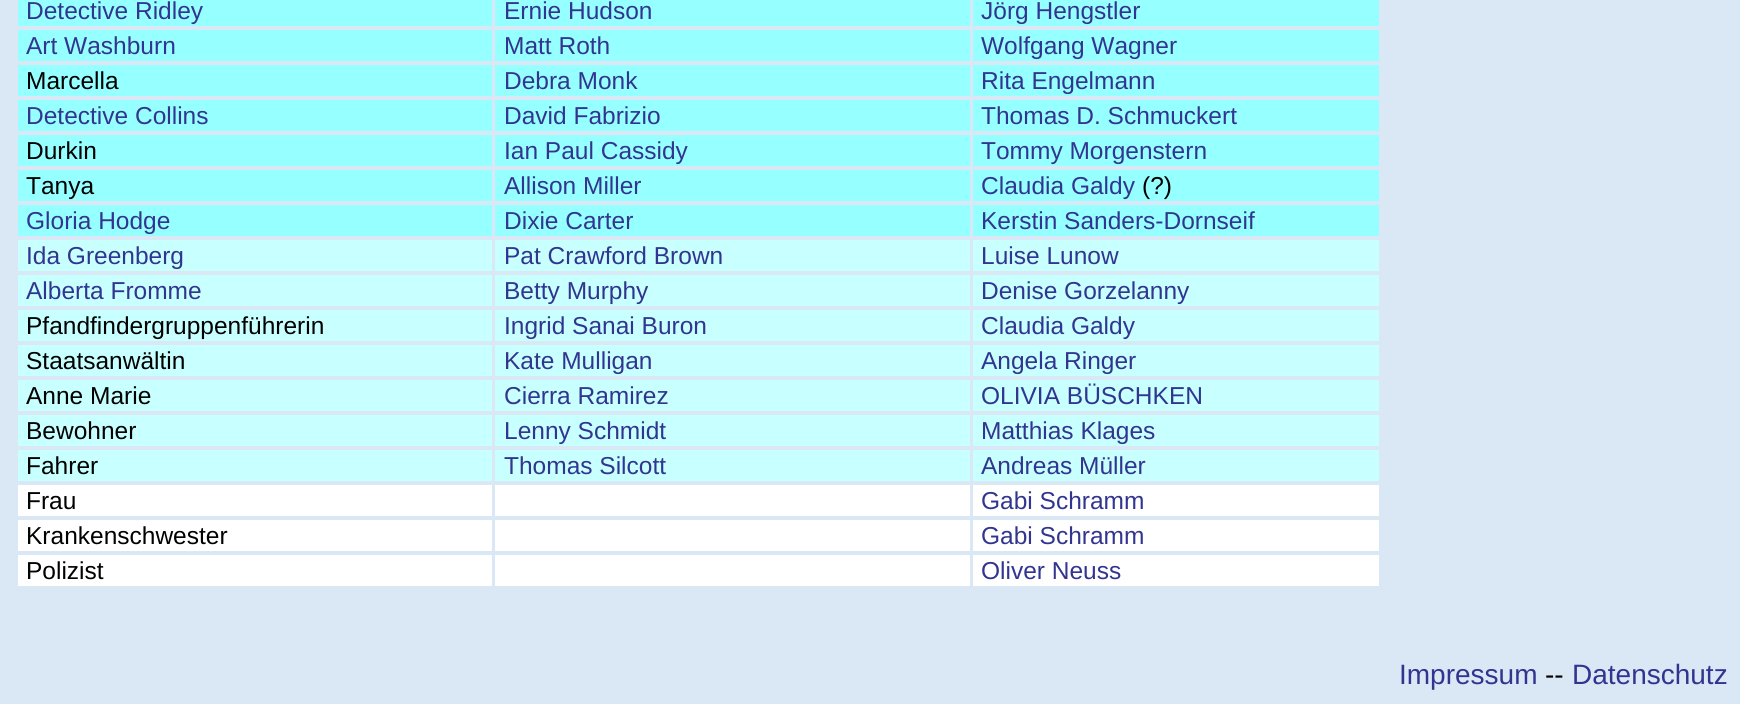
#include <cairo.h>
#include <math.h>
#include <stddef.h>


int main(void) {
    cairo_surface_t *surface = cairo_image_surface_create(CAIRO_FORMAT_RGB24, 1740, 704);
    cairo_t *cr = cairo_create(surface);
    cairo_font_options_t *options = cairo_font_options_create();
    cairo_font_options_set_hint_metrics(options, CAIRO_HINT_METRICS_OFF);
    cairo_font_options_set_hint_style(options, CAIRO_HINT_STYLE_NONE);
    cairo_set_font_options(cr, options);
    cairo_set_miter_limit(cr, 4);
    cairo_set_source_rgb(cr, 0.855, 0.906, 0.957);
    cairo_paint(cr);
    cairo_set_source_rgb(cr, 0.588, 1, 1);
    cairo_rectangle(cr, 18, 0, 474, 26);
    cairo_fill(cr);
    cairo_select_font_face(cr, "Liberation Sans", CAIRO_FONT_SLANT_NORMAL, CAIRO_FONT_WEIGHT_NORMAL);
    cairo_set_font_size(cr, 24.5);
    cairo_set_source_rgb(cr, 0.196, 0.208, 0.565);
    cairo_move_to(cr, 26, 19);
    cairo_show_text(cr, "Detective Ridley");
    cairo_set_source_rgb(cr, 0.588, 1, 1);
    cairo_rectangle(cr, 495, 0, 475, 26);
    cairo_fill(cr);
    cairo_set_source_rgb(cr, 0.196, 0.208, 0.565);
    cairo_move_to(cr, 504, 19);
    cairo_show_text(cr, "Ernie Hudson");
    cairo_set_source_rgb(cr, 0.588, 1, 1);
    cairo_rectangle(cr, 973, 0, 406, 26);
    cairo_fill(cr);
    cairo_set_source_rgb(cr, 0.196, 0.208, 0.565);
    cairo_move_to(cr, 981, 19);
    cairo_show_text(cr, "Jörg Hengstler");
    cairo_set_source_rgb(cr, 0.588, 1, 1);
    cairo_rectangle(cr, 18, 30, 474, 31);
    cairo_fill(cr);
    cairo_set_source_rgb(cr, 0.196, 0.208, 0.565);
    cairo_move_to(cr, 26, 54);
    cairo_show_text(cr, "Art Washburn");
    cairo_set_source_rgb(cr, 0.588, 1, 1);
    cairo_rectangle(cr, 495, 30, 475, 31);
    cairo_fill(cr);
    cairo_set_source_rgb(cr, 0.196, 0.208, 0.565);
    cairo_move_to(cr, 504, 54);
    cairo_show_text(cr, "Matt Roth");
    cairo_set_source_rgb(cr, 0.588, 1, 1);
    cairo_rectangle(cr, 973, 30, 406, 31);
    cairo_fill(cr);
    cairo_set_source_rgb(cr, 0.196, 0.208, 0.565);
    cairo_move_to(cr, 981, 54);
    cairo_show_text(cr, "Wolfgang Wagner");
    cairo_set_source_rgb(cr, 0.588, 1, 1);
    cairo_rectangle(cr, 18, 65, 474, 31);
    cairo_fill(cr);
    cairo_set_source_rgb(cr, 0, 0, 0);
    cairo_move_to(cr, 26, 89);
    cairo_show_text(cr, "Marcella");
    cairo_set_source_rgb(cr, 0.588, 1, 1);
    cairo_rectangle(cr, 495, 65, 475, 31);
    cairo_fill(cr);
    cairo_set_source_rgb(cr, 0.196, 0.208, 0.565);
    cairo_move_to(cr, 504, 89);
    cairo_show_text(cr, "Debra Monk");
    cairo_set_source_rgb(cr, 0.588, 1, 1);
    cairo_rectangle(cr, 973, 65, 406, 31);
    cairo_fill(cr);
    cairo_set_source_rgb(cr, 0.196, 0.208, 0.565);
    cairo_move_to(cr, 981, 89);
    cairo_show_text(cr, "Rita Engelmann");
    cairo_set_source_rgb(cr, 0.588, 1, 1);
    cairo_rectangle(cr, 18, 100, 474, 31);
    cairo_fill(cr);
    cairo_set_source_rgb(cr, 0.196, 0.208, 0.565);
    cairo_move_to(cr, 26, 124);
    cairo_show_text(cr, "Detective Collins");
    cairo_set_source_rgb(cr, 0.588, 1, 1);
    cairo_rectangle(cr, 495, 100, 475, 31);
    cairo_fill(cr);
    cairo_set_source_rgb(cr, 0.196, 0.208, 0.565);
    cairo_move_to(cr, 504, 124);
    cairo_show_text(cr, "David Fabrizio");
    cairo_set_source_rgb(cr, 0.588, 1, 1);
    cairo_rectangle(cr, 973, 100, 406, 31);
    cairo_fill(cr);
    cairo_set_source_rgb(cr, 0.196, 0.208, 0.565);
    cairo_move_to(cr, 981, 124);
    cairo_show_text(cr, "Thomas D. Schmuckert");
    cairo_set_source_rgb(cr, 0.588, 1, 1);
    cairo_rectangle(cr, 18, 135, 474, 31);
    cairo_fill(cr);
    cairo_set_source_rgb(cr, 0, 0, 0);
    cairo_move_to(cr, 26, 159);
    cairo_show_text(cr, "Durkin");
    cairo_set_source_rgb(cr, 0.588, 1, 1);
    cairo_rectangle(cr, 495, 135, 475, 31);
    cairo_fill(cr);
    cairo_set_source_rgb(cr, 0.196, 0.208, 0.565);
    cairo_move_to(cr, 504, 159);
    cairo_show_text(cr, "Ian Paul Cassidy");
    cairo_set_source_rgb(cr, 0.588, 1, 1);
    cairo_rectangle(cr, 973, 135, 406, 31);
    cairo_fill(cr);
    cairo_set_source_rgb(cr, 0.196, 0.208, 0.565);
    cairo_move_to(cr, 981, 159);
    cairo_show_text(cr, "Tommy Morgenstern");
    cairo_set_source_rgb(cr, 0.588, 1, 1);
    cairo_rectangle(cr, 18, 170, 474, 31);
    cairo_fill(cr);
    cairo_set_source_rgb(cr, 0, 0, 0);
    cairo_move_to(cr, 26, 194);
    cairo_show_text(cr, "Tanya");
    cairo_set_source_rgb(cr, 0.588, 1, 1);
    cairo_rectangle(cr, 495, 170, 475, 31);
    cairo_fill(cr);
    cairo_set_source_rgb(cr, 0.196, 0.208, 0.565);
    cairo_move_to(cr, 504, 194);
    cairo_show_text(cr, "Allison Miller");
    cairo_set_source_rgb(cr, 0.588, 1, 1);
    cairo_rectangle(cr, 973, 170, 406, 31);
    cairo_fill(cr);
    cairo_set_source_rgb(cr, 0.196, 0.208, 0.565);
    cairo_move_to(cr, 981, 194);
    cairo_show_text(cr, "Claudia Galdy");
    cairo_set_source_rgb(cr, 0, 0, 0);
    cairo_move_to(cr, 1142, 194);
    cairo_show_text(cr, "(?)");
    cairo_set_source_rgb(cr, 0.588, 1, 1);
    cairo_rectangle(cr, 18, 205, 474, 31);
    cairo_fill(cr);
    cairo_set_source_rgb(cr, 0.196, 0.208, 0.565);
    cairo_move_to(cr, 26, 229);
    cairo_show_text(cr, "Gloria Hodge");
    cairo_set_source_rgb(cr, 0.588, 1, 1);
    cairo_rectangle(cr, 495, 205, 475, 31);
    cairo_fill(cr);
    cairo_set_source_rgb(cr, 0.196, 0.208, 0.565);
    cairo_move_to(cr, 504, 229);
    cairo_show_text(cr, "Dixie Carter");
    cairo_set_source_rgb(cr, 0.588, 1, 1);
    cairo_rectangle(cr, 973, 205, 406, 31);
    cairo_fill(cr);
    cairo_set_source_rgb(cr, 0.196, 0.208, 0.565);
    cairo_move_to(cr, 981, 229);
    cairo_show_text(cr, "Kerstin Sanders-Dornseif");
    cairo_set_source_rgb(cr, 0.784, 1, 1);
    cairo_rectangle(cr, 18, 240, 474, 31);
    cairo_fill(cr);
    cairo_set_source_rgb(cr, 0.196, 0.208, 0.565);
    cairo_move_to(cr, 26, 264);
    cairo_show_text(cr, "Ida Greenberg");
    cairo_set_source_rgb(cr, 0.784, 1, 1);
    cairo_rectangle(cr, 495, 240, 475, 31);
    cairo_fill(cr);
    cairo_set_source_rgb(cr, 0.196, 0.208, 0.565);
    cairo_move_to(cr, 504, 264);
    cairo_show_text(cr, "Pat Crawford Brown");
    cairo_set_source_rgb(cr, 0.784, 1, 1);
    cairo_rectangle(cr, 973, 240, 406, 31);
    cairo_fill(cr);
    cairo_set_source_rgb(cr, 0.196, 0.208, 0.565);
    cairo_move_to(cr, 981, 264);
    cairo_show_text(cr, "Luise Lunow");
    cairo_set_source_rgb(cr, 0.784, 1, 1);
    cairo_rectangle(cr, 18, 275, 474, 31);
    cairo_fill(cr);
    cairo_set_source_rgb(cr, 0.196, 0.208, 0.565);
    cairo_move_to(cr, 26, 299);
    cairo_show_text(cr, "Alberta Fromme");
    cairo_set_source_rgb(cr, 0.784, 1, 1);
    cairo_rectangle(cr, 495, 275, 475, 31);
    cairo_fill(cr);
    cairo_set_source_rgb(cr, 0.196, 0.208, 0.565);
    cairo_move_to(cr, 504, 299);
    cairo_show_text(cr, "Betty Murphy");
    cairo_set_source_rgb(cr, 0.784, 1, 1);
    cairo_rectangle(cr, 973, 275, 406, 31);
    cairo_fill(cr);
    cairo_set_source_rgb(cr, 0.196, 0.208, 0.565);
    cairo_move_to(cr, 981, 299);
    cairo_show_text(cr, "Denise Gorzelanny");
    cairo_set_source_rgb(cr, 0.784, 1, 1);
    cairo_rectangle(cr, 18, 310, 474, 31);
    cairo_fill(cr);
    cairo_set_source_rgb(cr, 0, 0, 0);
    cairo_move_to(cr, 26, 334);
    cairo_show_text(cr, "Pfandfindergruppenführerin");
    cairo_set_source_rgb(cr, 0.784, 1, 1);
    cairo_rectangle(cr, 495, 310, 475, 31);
    cairo_fill(cr);
    cairo_set_source_rgb(cr, 0.196, 0.208, 0.565);
    cairo_move_to(cr, 504, 334);
    cairo_show_text(cr, "Ingrid Sanai Buron");
    cairo_set_source_rgb(cr, 0.784, 1, 1);
    cairo_rectangle(cr, 973, 310, 406, 31);
    cairo_fill(cr);
    cairo_set_source_rgb(cr, 0.196, 0.208, 0.565);
    cairo_move_to(cr, 981, 334);
    cairo_show_text(cr, "Claudia Galdy");
    cairo_set_source_rgb(cr, 0.784, 1, 1);
    cairo_rectangle(cr, 18, 345, 474, 31);
    cairo_fill(cr);
    cairo_set_source_rgb(cr, 0, 0, 0);
    cairo_move_to(cr, 26, 369);
    cairo_show_text(cr, "Staatsanwältin");
    cairo_set_source_rgb(cr, 0.784, 1, 1);
    cairo_rectangle(cr, 495, 345, 475, 31);
    cairo_fill(cr);
    cairo_set_source_rgb(cr, 0.196, 0.208, 0.565);
    cairo_move_to(cr, 504, 369);
    cairo_show_text(cr, "Kate Mulligan");
    cairo_set_source_rgb(cr, 0.784, 1, 1);
    cairo_rectangle(cr, 973, 345, 406, 31);
    cairo_fill(cr);
    cairo_set_source_rgb(cr, 0.196, 0.208, 0.565);
    cairo_move_to(cr, 981, 369);
    cairo_show_text(cr, "Angela Ringer");
    cairo_set_source_rgb(cr, 0.784, 1, 1);
    cairo_rectangle(cr, 18, 380, 474, 31);
    cairo_fill(cr);
    cairo_set_source_rgb(cr, 0, 0, 0);
    cairo_move_to(cr, 26, 404);
    cairo_show_text(cr, "Anne Marie");
    cairo_set_source_rgb(cr, 0.784, 1, 1);
    cairo_rectangle(cr, 495, 380, 475, 31);
    cairo_fill(cr);
    cairo_set_source_rgb(cr, 0.196, 0.208, 0.565);
    cairo_move_to(cr, 504, 404);
    cairo_show_text(cr, "Cierra Ramirez");
    cairo_set_source_rgb(cr, 0.784, 1, 1);
    cairo_rectangle(cr, 973, 380, 406, 31);
    cairo_fill(cr);
    cairo_set_source_rgb(cr, 0.196, 0.208, 0.565);
    cairo_move_to(cr, 981, 404);
    cairo_show_text(cr, "OLIVIA BÜSCHKEN");
    cairo_set_source_rgb(cr, 0.784, 1, 1);
    cairo_rectangle(cr, 18, 415, 474, 31);
    cairo_fill(cr);
    cairo_set_source_rgb(cr, 0, 0, 0);
    cairo_move_to(cr, 26, 439);
    cairo_show_text(cr, "Bewohner");
    cairo_set_source_rgb(cr, 0.784, 1, 1);
    cairo_rectangle(cr, 495, 415, 475, 31);
    cairo_fill(cr);
    cairo_set_source_rgb(cr, 0.196, 0.208, 0.565);
    cairo_move_to(cr, 504, 439);
    cairo_show_text(cr, "Lenny Schmidt");
    cairo_set_source_rgb(cr, 0.784, 1, 1);
    cairo_rectangle(cr, 973, 415, 406, 31);
    cairo_fill(cr);
    cairo_set_source_rgb(cr, 0.196, 0.208, 0.565);
    cairo_move_to(cr, 981, 439);
    cairo_show_text(cr, "Matthias Klages");
    cairo_set_source_rgb(cr, 0.784, 1, 1);
    cairo_rectangle(cr, 18, 450, 474, 31);
    cairo_fill(cr);
    cairo_set_source_rgb(cr, 0, 0, 0);
    cairo_move_to(cr, 26, 474);
    cairo_show_text(cr, "Fahrer");
    cairo_set_source_rgb(cr, 0.784, 1, 1);
    cairo_rectangle(cr, 495, 450, 475, 31);
    cairo_fill(cr);
    cairo_set_source_rgb(cr, 0.196, 0.208, 0.565);
    cairo_move_to(cr, 504, 474);
    cairo_show_text(cr, "Thomas Silcott");
    cairo_set_source_rgb(cr, 0.784, 1, 1);
    cairo_rectangle(cr, 973, 450, 406, 31);
    cairo_fill(cr);
    cairo_set_source_rgb(cr, 0.196, 0.208, 0.565);
    cairo_move_to(cr, 981, 474);
    cairo_show_text(cr, "Andreas Müller");
    cairo_set_source_rgb(cr, 1, 1, 1);
    cairo_rectangle(cr, 18, 485, 474, 31);
    cairo_fill(cr);
    cairo_set_source_rgb(cr, 0, 0, 0);
    cairo_move_to(cr, 26, 509);
    cairo_show_text(cr, "Frau");
    cairo_set_source_rgb(cr, 1, 1, 1);
    cairo_rectangle(cr, 495, 485, 475, 31);
    cairo_fill(cr);
    cairo_rectangle(cr, 973, 485, 406, 31);
    cairo_fill(cr);
    cairo_set_source_rgb(cr, 0.196, 0.208, 0.565);
    cairo_move_to(cr, 981, 509);
    cairo_show_text(cr, "Gabi Schramm");
    cairo_set_source_rgb(cr, 1, 1, 1);
    cairo_rectangle(cr, 18, 520, 474, 31);
    cairo_fill(cr);
    cairo_set_source_rgb(cr, 0, 0, 0);
    cairo_move_to(cr, 26, 544);
    cairo_show_text(cr, "Krankenschwester");
    cairo_set_source_rgb(cr, 1, 1, 1);
    cairo_rectangle(cr, 495, 520, 475, 31);
    cairo_fill(cr);
    cairo_rectangle(cr, 973, 520, 406, 31);
    cairo_fill(cr);
    cairo_set_source_rgb(cr, 0.196, 0.208, 0.565);
    cairo_move_to(cr, 981, 544);
    cairo_show_text(cr, "Gabi Schramm");
    cairo_set_source_rgb(cr, 1, 1, 1);
    cairo_rectangle(cr, 18, 555, 474, 31);
    cairo_fill(cr);
    cairo_set_source_rgb(cr, 0, 0, 0);
    cairo_move_to(cr, 26, 579);
    cairo_show_text(cr, "Polizist");
    cairo_set_source_rgb(cr, 1, 1, 1);
    cairo_rectangle(cr, 495, 555, 475, 31);
    cairo_fill(cr);
    cairo_rectangle(cr, 973, 555, 406, 31);
    cairo_fill(cr);
    cairo_set_source_rgb(cr, 0.196, 0.208, 0.565);
    cairo_move_to(cr, 981, 579);
    cairo_show_text(cr, "Oliver Neuss");
    cairo_set_font_size(cr, 28);
    cairo_move_to(cr, 1399, 684);
    cairo_show_text(cr, "Impressum");
    cairo_set_source_rgb(cr, 0, 0, 0);
    cairo_move_to(cr, 1545, 684);
    cairo_show_text(cr, "--");
    cairo_set_source_rgb(cr, 0.196, 0.208, 0.565);
    cairo_move_to(cr, 1572, 684);
    cairo_show_text(cr, "Datenschutz");
    cairo_surface_write_to_png(surface, "page.png");
    cairo_font_options_destroy(options);
    cairo_destroy(cr);
    cairo_surface_destroy(surface);
    return 0;
}
